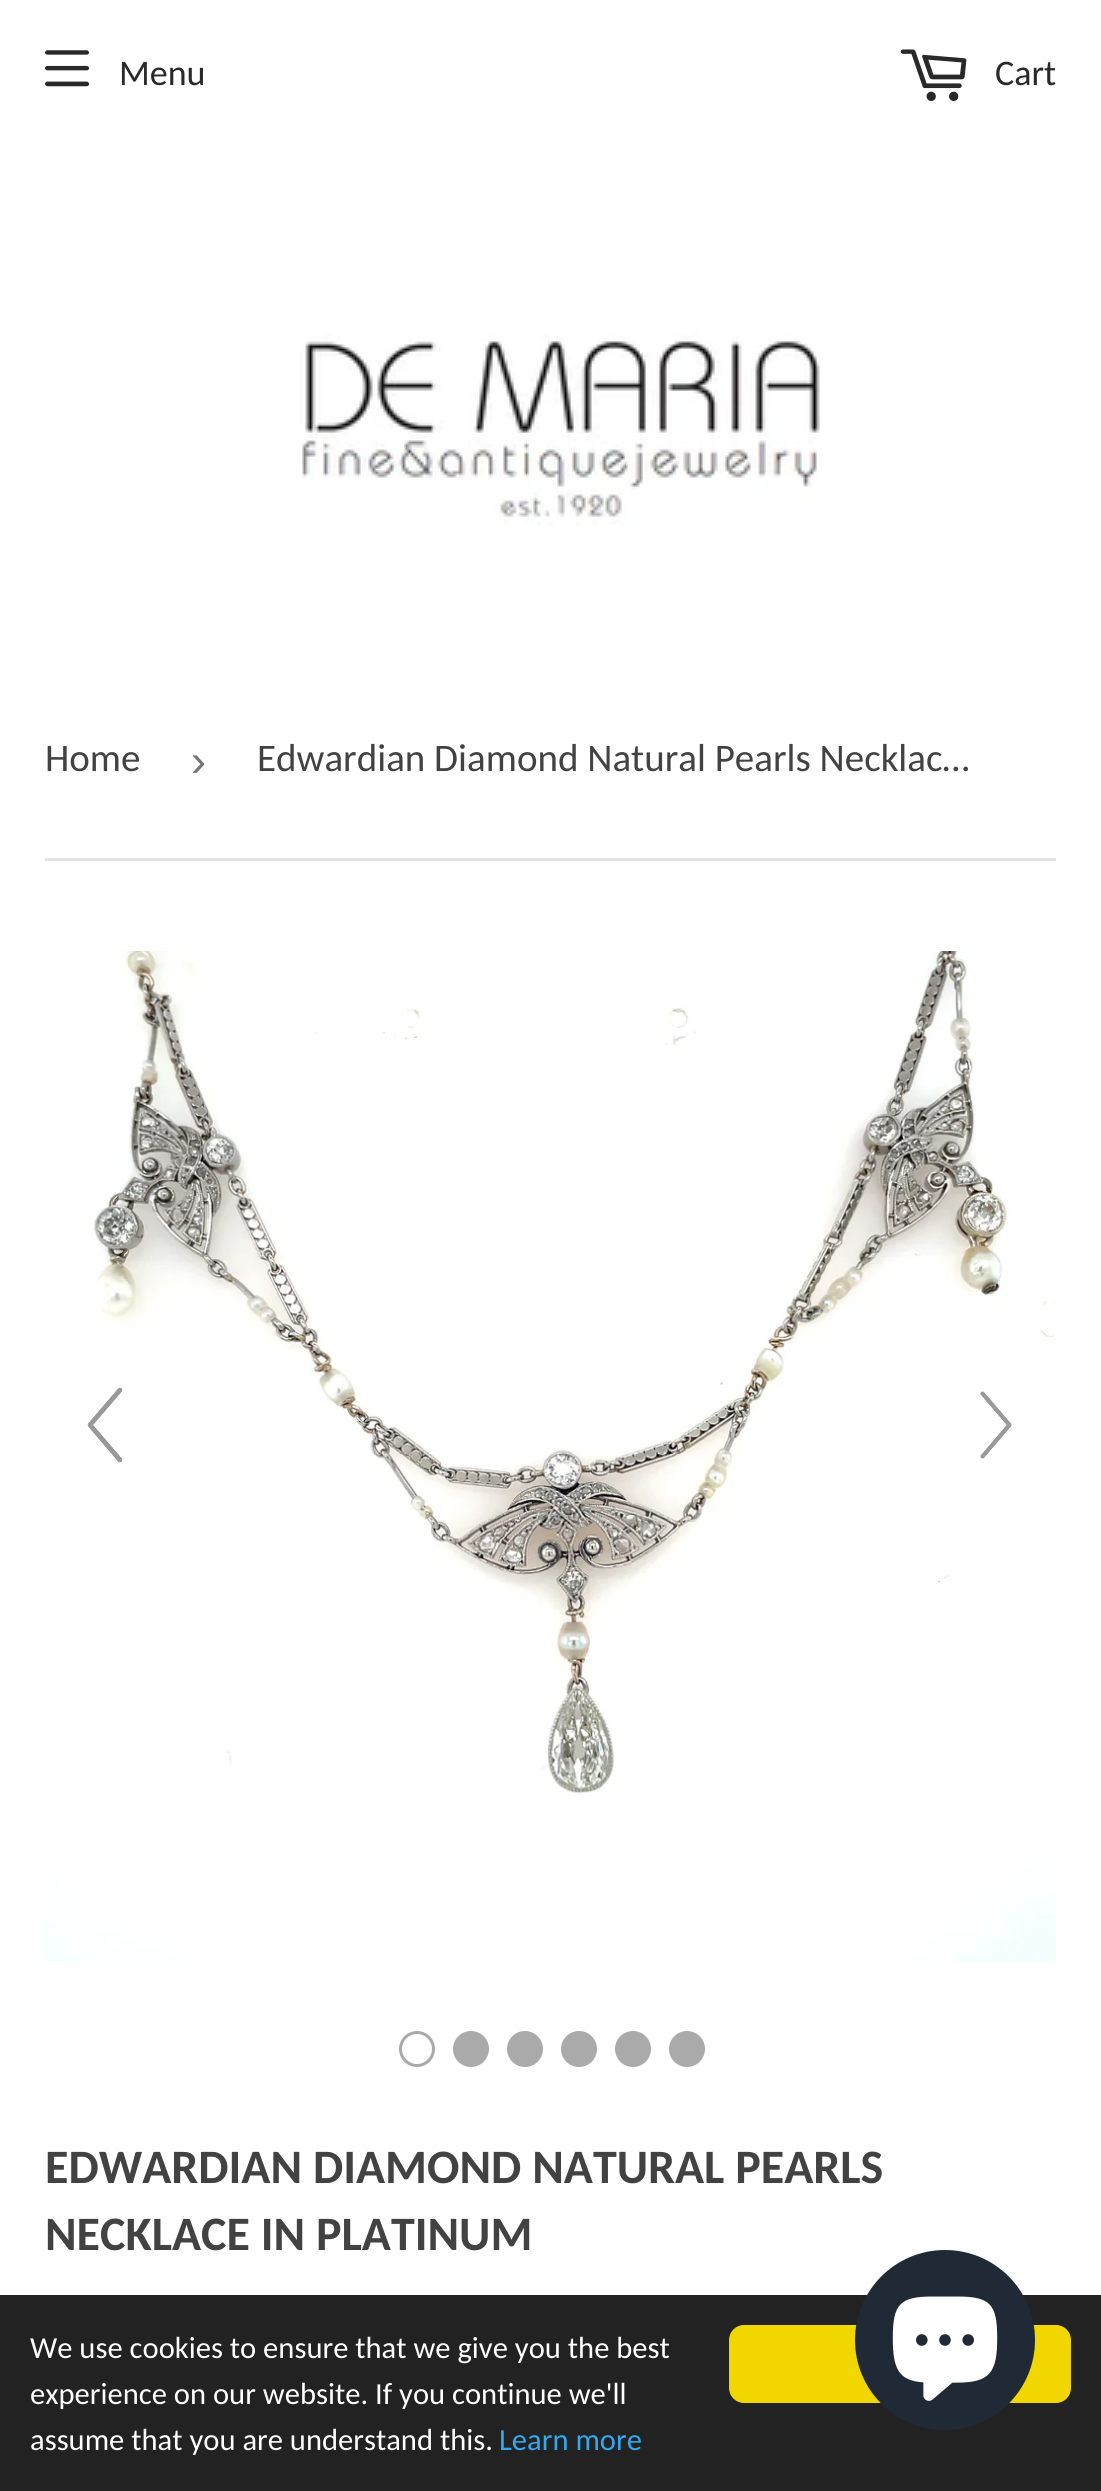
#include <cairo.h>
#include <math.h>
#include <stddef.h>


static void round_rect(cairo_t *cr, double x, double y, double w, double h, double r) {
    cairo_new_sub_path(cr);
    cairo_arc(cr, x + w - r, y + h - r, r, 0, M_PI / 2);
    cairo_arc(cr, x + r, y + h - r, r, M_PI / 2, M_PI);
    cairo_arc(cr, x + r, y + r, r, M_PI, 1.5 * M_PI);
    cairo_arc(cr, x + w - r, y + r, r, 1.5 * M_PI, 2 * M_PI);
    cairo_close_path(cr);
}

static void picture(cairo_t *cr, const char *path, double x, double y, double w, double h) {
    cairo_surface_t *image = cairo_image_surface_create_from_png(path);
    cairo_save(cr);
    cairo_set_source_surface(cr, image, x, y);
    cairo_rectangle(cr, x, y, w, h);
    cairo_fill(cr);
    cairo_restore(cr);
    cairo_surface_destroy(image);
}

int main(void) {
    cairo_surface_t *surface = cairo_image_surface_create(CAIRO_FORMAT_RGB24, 1101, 2491);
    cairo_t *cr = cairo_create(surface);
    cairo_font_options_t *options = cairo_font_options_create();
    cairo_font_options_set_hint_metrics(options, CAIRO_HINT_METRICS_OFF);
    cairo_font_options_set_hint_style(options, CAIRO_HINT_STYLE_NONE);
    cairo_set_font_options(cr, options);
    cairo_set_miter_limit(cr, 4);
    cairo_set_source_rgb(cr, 1, 1, 1);
    cairo_paint(cr);
    picture(cr, "img1.png", 45, 50, 44, 37);
    cairo_select_font_face(cr, "Carlito", CAIRO_FONT_SLANT_NORMAL, CAIRO_FONT_WEIGHT_NORMAL);
    cairo_set_font_size(cr, 36);
    cairo_set_source_rgb(cr, 0.161, 0.161, 0.161);
    cairo_move_to(cr, 119, 85);
    cairo_show_text(cr, "Menu");
    picture(cr, "img2.png", 900, 49, 67, 52);
    cairo_move_to(cr, 995, 85);
    cairo_show_text(cr, "Cart");
    picture(cr, "img3.png", 299, 334, 521, 191);
    cairo_set_source_rgb(cr, 0.89, 0.89, 0.89);
    cairo_rectangle(cr, 45, 858, 1011, 3);
    cairo_fill(cr);
    cairo_set_font_size(cr, 39);
    cairo_set_source_rgb(cr, 0.259, 0.259, 0.259);
    cairo_move_to(cr, 45, 771);
    cairo_show_text(cr, "Home");
    cairo_select_font_face(cr, "Liberation Sans", CAIRO_FONT_SLANT_NORMAL, CAIRO_FONT_WEIGHT_NORMAL);
    cairo_set_font_size(cr, 45);
    cairo_set_source_rgb(cr, 0.463, 0.463, 0.463);
    cairo_move_to(cr, 191, 776);
    cairo_show_text(cr, "›");
    cairo_select_font_face(cr, "Carlito", CAIRO_FONT_SLANT_NORMAL, CAIRO_FONT_WEIGHT_NORMAL);
    cairo_set_font_size(cr, 39);
    cairo_set_source_rgb(cr, 0.259, 0.259, 0.259);
    cairo_move_to(cr, 257, 771);
    cairo_show_text(cr, "Edwardian Diamond Natural Pearls Necklac…");
    picture(cr, "img4.png", 45, 951, 1011, 1011);
    picture(cr, "img5.png", 87, 1387, 36, 76);
    picture(cr, "img6.png", 980, 1391, 32, 68);
    cairo_set_source_rgb(cr, 0.667, 0.667, 0.667);
    cairo_arc(cr, 417, 2049, 18, 0, 2 * M_PI);
    cairo_fill(cr);
    cairo_set_source_rgb(cr, 1, 1, 1);
    cairo_arc(cr, 417, 2049, 15, 0, 2 * M_PI);
    cairo_fill(cr);
    cairo_set_source_rgb(cr, 0.667, 0.667, 0.667);
    cairo_arc(cr, 471, 2049, 18, 0, 2 * M_PI);
    cairo_fill(cr);
    cairo_arc(cr, 525, 2049, 18, 0, 2 * M_PI);
    cairo_fill(cr);
    cairo_arc(cr, 579, 2049, 18, 0, 2 * M_PI);
    cairo_fill(cr);
    cairo_arc(cr, 633, 2049, 18, 0, 2 * M_PI);
    cairo_fill(cr);
    cairo_arc(cr, 687, 2049, 18, 0, 2 * M_PI);
    cairo_fill(cr);
    cairo_select_font_face(cr, "Carlito", CAIRO_FONT_SLANT_NORMAL, CAIRO_FONT_WEIGHT_BOLD);
    cairo_set_font_size(cr, 48);
    cairo_set_source_rgb(cr, 0.259, 0.259, 0.259);
    cairo_move_to(cr, 45, 2183);
    cairo_show_text(cr, "EDWARDIAN DIAMOND NATURAL PEARLS");
    cairo_move_to(cr, 45, 2250);
    cairo_show_text(cr, "NECKLACE IN PLATINUM");
    cairo_set_source_rgb(cr, 0.133, 0.133, 0.133);
    cairo_rectangle(cr, 0, 2295, 1101, 196);
    cairo_fill(cr);
    cairo_select_font_face(cr, "Carlito", CAIRO_FONT_SLANT_NORMAL, CAIRO_FONT_WEIGHT_NORMAL);
    cairo_set_font_size(cr, 30.6);
    cairo_set_source_rgb(cr, 1, 1, 1);
    cairo_move_to(cr, 30, 2358);
    cairo_show_text(cr, "We use cookies to ensure that we give you the best");
    cairo_move_to(cr, 30, 2404);
    cairo_show_text(cr, "experience on our website. If you continue we'll");
    cairo_move_to(cr, 30, 2450);
    cairo_show_text(cr, "assume that you are understand this.");
    cairo_set_source_rgb(cr, 0.192, 0.659, 0.941);
    cairo_move_to(cr, 499, 2450);
    cairo_show_text(cr, "Learn more");
    cairo_set_source_rgb(cr, 0.945, 0.839, 0);
    round_rect(cr, 729, 2325, 342, 78, 15);
    cairo_fill(cr);
    cairo_set_source_rgb(cr, 0.125, 0.165, 0.212);
    cairo_arc(cr, 945, 2340, 90, 0, 2 * M_PI);
    cairo_fill(cr);
    picture(cr, "img7.png", 892, 2296, 106, 105);
    cairo_surface_write_to_png(surface, "page.png");
    cairo_font_options_destroy(options);
    cairo_destroy(cr);
    cairo_surface_destroy(surface);
    return 0;
}
